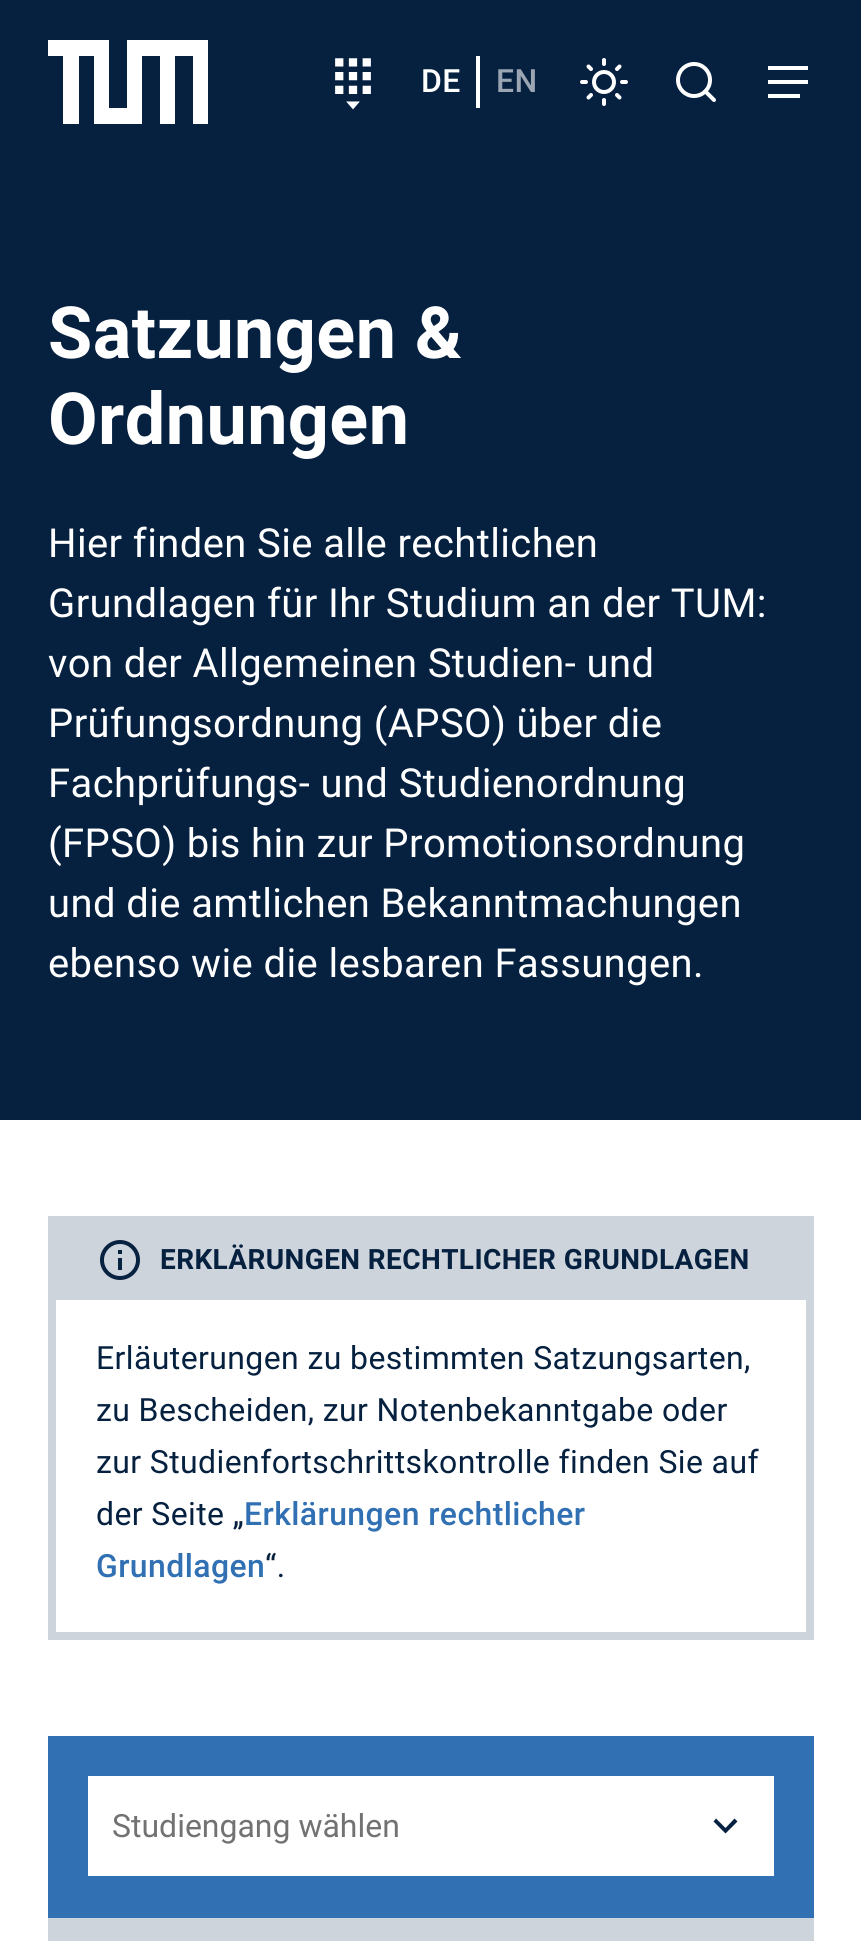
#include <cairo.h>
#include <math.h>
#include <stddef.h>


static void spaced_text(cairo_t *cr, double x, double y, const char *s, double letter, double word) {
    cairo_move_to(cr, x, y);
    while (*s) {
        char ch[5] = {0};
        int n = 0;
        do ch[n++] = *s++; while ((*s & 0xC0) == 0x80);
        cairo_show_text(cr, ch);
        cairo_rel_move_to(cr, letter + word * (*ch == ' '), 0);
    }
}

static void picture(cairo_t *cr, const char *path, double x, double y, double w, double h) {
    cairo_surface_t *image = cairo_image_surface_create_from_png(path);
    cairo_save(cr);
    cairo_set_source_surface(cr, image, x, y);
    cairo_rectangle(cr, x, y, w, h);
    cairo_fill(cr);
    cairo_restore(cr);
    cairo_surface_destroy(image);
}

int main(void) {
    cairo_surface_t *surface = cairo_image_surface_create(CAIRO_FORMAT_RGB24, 861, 1941);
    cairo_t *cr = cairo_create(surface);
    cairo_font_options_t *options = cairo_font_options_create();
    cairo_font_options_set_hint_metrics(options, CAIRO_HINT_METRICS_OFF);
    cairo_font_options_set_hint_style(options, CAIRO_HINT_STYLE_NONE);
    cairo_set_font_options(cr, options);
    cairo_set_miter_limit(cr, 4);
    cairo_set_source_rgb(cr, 1, 1, 1);
    cairo_paint(cr);
    cairo_set_source_rgb(cr, 0.027, 0.129, 0.251);
    cairo_rectangle(cr, 0, 0, 861, 1120);
    cairo_fill(cr);
    cairo_set_source_rgb(cr, 1, 1, 1);
    cairo_new_path(cr);
    cairo_move_to(cr, 109, 40);
    cairo_line_to(cr, 109, 108);
    cairo_line_to(cr, 127, 108);
    cairo_line_to(cr, 127, 40);
    cairo_line_to(cr, 208, 40);
    cairo_line_to(cr, 208, 124);
    cairo_line_to(cr, 193, 124);
    cairo_line_to(cr, 193, 56);
    cairo_line_to(cr, 175, 56);
    cairo_line_to(cr, 175, 124);
    cairo_line_to(cr, 160, 124);
    cairo_line_to(cr, 160, 56);
    cairo_line_to(cr, 142, 56);
    cairo_line_to(cr, 142, 124);
    cairo_line_to(cr, 94, 124);
    cairo_line_to(cr, 94, 56);
    cairo_line_to(cr, 79, 56);
    cairo_line_to(cr, 79, 124);
    cairo_line_to(cr, 63, 124);
    cairo_line_to(cr, 63, 56);
    cairo_line_to(cr, 48, 56);
    cairo_line_to(cr, 48, 40);
    cairo_close_path(cr);
    cairo_fill(cr);
    picture(cr, "img1.png", 335, 58, 36, 52);
    cairo_select_font_face(cr, "Roboto Medium", CAIRO_FONT_SLANT_NORMAL, CAIRO_FONT_WEIGHT_NORMAL);
    cairo_set_font_size(cr, 32);
    spaced_text(cr, 421, 92, "DE", 0.4, 0);
    cairo_rectangle(cr, 476, 56, 4, 52);
    cairo_fill(cr);
    cairo_set_source_rgb(cr, 0.612, 0.651, 0.702);
    spaced_text(cr, 496, 92, "EN", 0.4, 0);
    cairo_new_path(cr);
    cairo_arc(cr, 604, 82, 10, 0, 2 * M_PI);
    cairo_set_source_rgb(cr, 1, 1, 1);
    cairo_set_line_width(cr, 4);
    cairo_stroke(cr);
    cairo_new_path(cr);
    cairo_move_to(cr, 604, 60);
    cairo_line_to(cr, 604, 64);
    cairo_move_to(cr, 604, 100);
    cairo_line_to(cr, 604, 104);
    cairo_move_to(cr, 588.5, 66.5);
    cairo_line_to(cr, 591, 69);
    cairo_move_to(cr, 617, 95);
    cairo_line_to(cr, 619.5, 97.5);
    cairo_move_to(cr, 582, 82);
    cairo_line_to(cr, 586, 82);
    cairo_move_to(cr, 622, 82);
    cairo_line_to(cr, 626, 82);
    cairo_move_to(cr, 588.5, 97.5);
    cairo_line_to(cr, 591, 95);
    cairo_move_to(cr, 617, 69);
    cairo_line_to(cr, 619.5, 66.5);
    cairo_set_line_cap(cr, CAIRO_LINE_CAP_ROUND);
    cairo_set_line_join(cr, CAIRO_LINE_JOIN_ROUND);
    cairo_stroke(cr);
    cairo_arc(cr, 694, 80, 16, 0, 2 * M_PI);
    cairo_set_line_cap(cr, CAIRO_LINE_CAP_BUTT);
    cairo_set_line_join(cr, CAIRO_LINE_JOIN_MITER);
    cairo_stroke(cr);
    cairo_new_path(cr);
    cairo_move_to(cr, 714, 100);
    cairo_line_to(cr, 705.5, 91.5);
    cairo_set_line_cap(cr, CAIRO_LINE_CAP_ROUND);
    cairo_set_line_join(cr, CAIRO_LINE_JOIN_ROUND);
    cairo_stroke(cr);
    cairo_new_path(cr);
    cairo_move_to(cr, 768, 84);
    cairo_line_to(cr, 808, 84);
    cairo_line_to(cr, 808, 80);
    cairo_line_to(cr, 768, 80);
    cairo_close_path(cr);
    cairo_move_to(cr, 768, 98);
    cairo_line_to(cr, 800, 98);
    cairo_line_to(cr, 800, 94);
    cairo_line_to(cr, 768, 94);
    cairo_close_path(cr);
    cairo_move_to(cr, 768, 66);
    cairo_line_to(cr, 768, 70);
    cairo_line_to(cr, 808, 70);
    cairo_line_to(cr, 808, 66);
    cairo_close_path(cr);
    cairo_fill(cr);
    cairo_select_font_face(cr, "Roboto", CAIRO_FONT_SLANT_NORMAL, CAIRO_FONT_WEIGHT_BOLD);
    cairo_set_font_size(cr, 72);
    spaced_text(cr, 48, 358, "Satzungen &", 0.4, 0);
    spaced_text(cr, 48, 444, "Ordnungen", 0.4, 0);
    cairo_select_font_face(cr, "Roboto", CAIRO_FONT_SLANT_NORMAL, CAIRO_FONT_WEIGHT_NORMAL);
    cairo_set_font_size(cr, 40);
    spaced_text(cr, 48, 557, "Hier finden Sie alle rechtlichen", 0.4, 0);
    spaced_text(cr, 48, 617, "Grundlagen für Ihr Studium an der TUM:", 0.4, 0);
    spaced_text(cr, 48, 677, "von der Allgemeinen Studien- und", 0.4, 0);
    spaced_text(cr, 48, 737, "Prüfungsordnung (APSO) über die", 0.4, 0);
    spaced_text(cr, 48, 797, "Fachprüfungs- und Studienordnung", 0.4, 0);
    spaced_text(cr, 48, 857, "(FPSO) bis hin zur Promotionsordnung", 0.4, 0);
    spaced_text(cr, 48, 917, "und die amtlichen Bekanntmachungen", 0.4, 0);
    spaced_text(cr, 48, 977, "ebenso wie die lesbaren Fassungen.", 0.4, 0);
    cairo_rectangle(cr, 52, 1220, 758, 416);
    cairo_set_source_rgb(cr, 0.804, 0.831, 0.859);
    cairo_set_line_width(cr, 8);
    cairo_set_line_cap(cr, CAIRO_LINE_CAP_BUTT);
    cairo_set_line_join(cr, CAIRO_LINE_JOIN_MITER);
    cairo_stroke(cr);
    cairo_rectangle(cr, 56, 1224, 750, 76);
    cairo_fill(cr);
    picture(cr, "img2.png", 100, 1240, 40, 40);
    cairo_select_font_face(cr, "Roboto", CAIRO_FONT_SLANT_NORMAL, CAIRO_FONT_WEIGHT_BOLD);
    cairo_set_font_size(cr, 28);
    cairo_set_source_rgb(cr, 0.027, 0.129, 0.251);
    spaced_text(cr, 160, 1269, "ERKLÄRUNGEN RECHTLICHER GRUNDLAGEN", 0.4, 0);
    cairo_select_font_face(cr, "Roboto", CAIRO_FONT_SLANT_NORMAL, CAIRO_FONT_WEIGHT_NORMAL);
    cairo_set_font_size(cr, 32);
    spaced_text(cr, 96, 1369, "Erläuterungen zu bestimmten Satzungsarten,", 0.4, 0);
    spaced_text(cr, 96, 1421, "zu Bescheiden, zur Notenbekanntgabe oder", 0.4, 0);
    spaced_text(cr, 96, 1473, "zur Studienfortschrittskontrolle finden Sie auf", 0.4, 0);
    spaced_text(cr, 96, 1525, "der Seite „", 0.4, 0);
    cairo_select_font_face(cr, "Roboto Medium", CAIRO_FONT_SLANT_NORMAL, CAIRO_FONT_WEIGHT_NORMAL);
    cairo_set_source_rgb(cr, 0.188, 0.439, 0.702);
    spaced_text(cr, 244, 1525, "Erklärungen rechtlicher", 0.4, 0);
    spaced_text(cr, 96, 1577, "Grundlagen", 0.4, 0);
    cairo_select_font_face(cr, "Roboto", CAIRO_FONT_SLANT_NORMAL, CAIRO_FONT_WEIGHT_NORMAL);
    cairo_set_source_rgb(cr, 0.027, 0.129, 0.251);
    spaced_text(cr, 265, 1577, "“.", 0.4, 0);
    cairo_set_source_rgb(cr, 0.188, 0.439, 0.702);
    cairo_rectangle(cr, 48, 1736, 766, 182);
    cairo_fill(cr);
    cairo_set_source_rgb(cr, 1, 1, 1);
    cairo_rectangle(cr, 88, 1776, 686, 100);
    cairo_fill(cr);
    cairo_set_source_rgb(cr, 0.027, 0.129, 0.251);
    cairo_new_path(cr);
    cairo_move_to(cr, 716, 1818.5);
    cairo_line_to(cr, 713.5, 1821.5);
    cairo_line_to(cr, 725.5, 1833.5);
    cairo_line_to(cr, 737.5, 1821.5);
    cairo_line_to(cr, 734.5, 1818.5);
    cairo_line_to(cr, 725.5, 1828);
    cairo_close_path(cr);
    cairo_fill(cr);
    cairo_set_source_rgb(cr, 0.447, 0.447, 0.447);
    cairo_move_to(cr, 112, 1837);
    cairo_show_text(cr, "Studiengang wählen");
    cairo_set_source_rgb(cr, 0.804, 0.831, 0.859);
    cairo_rectangle(cr, 48, 1918, 766, 23);
    cairo_fill(cr);
    cairo_surface_write_to_png(surface, "page.png");
    cairo_font_options_destroy(options);
    cairo_destroy(cr);
    cairo_surface_destroy(surface);
    return 0;
}
